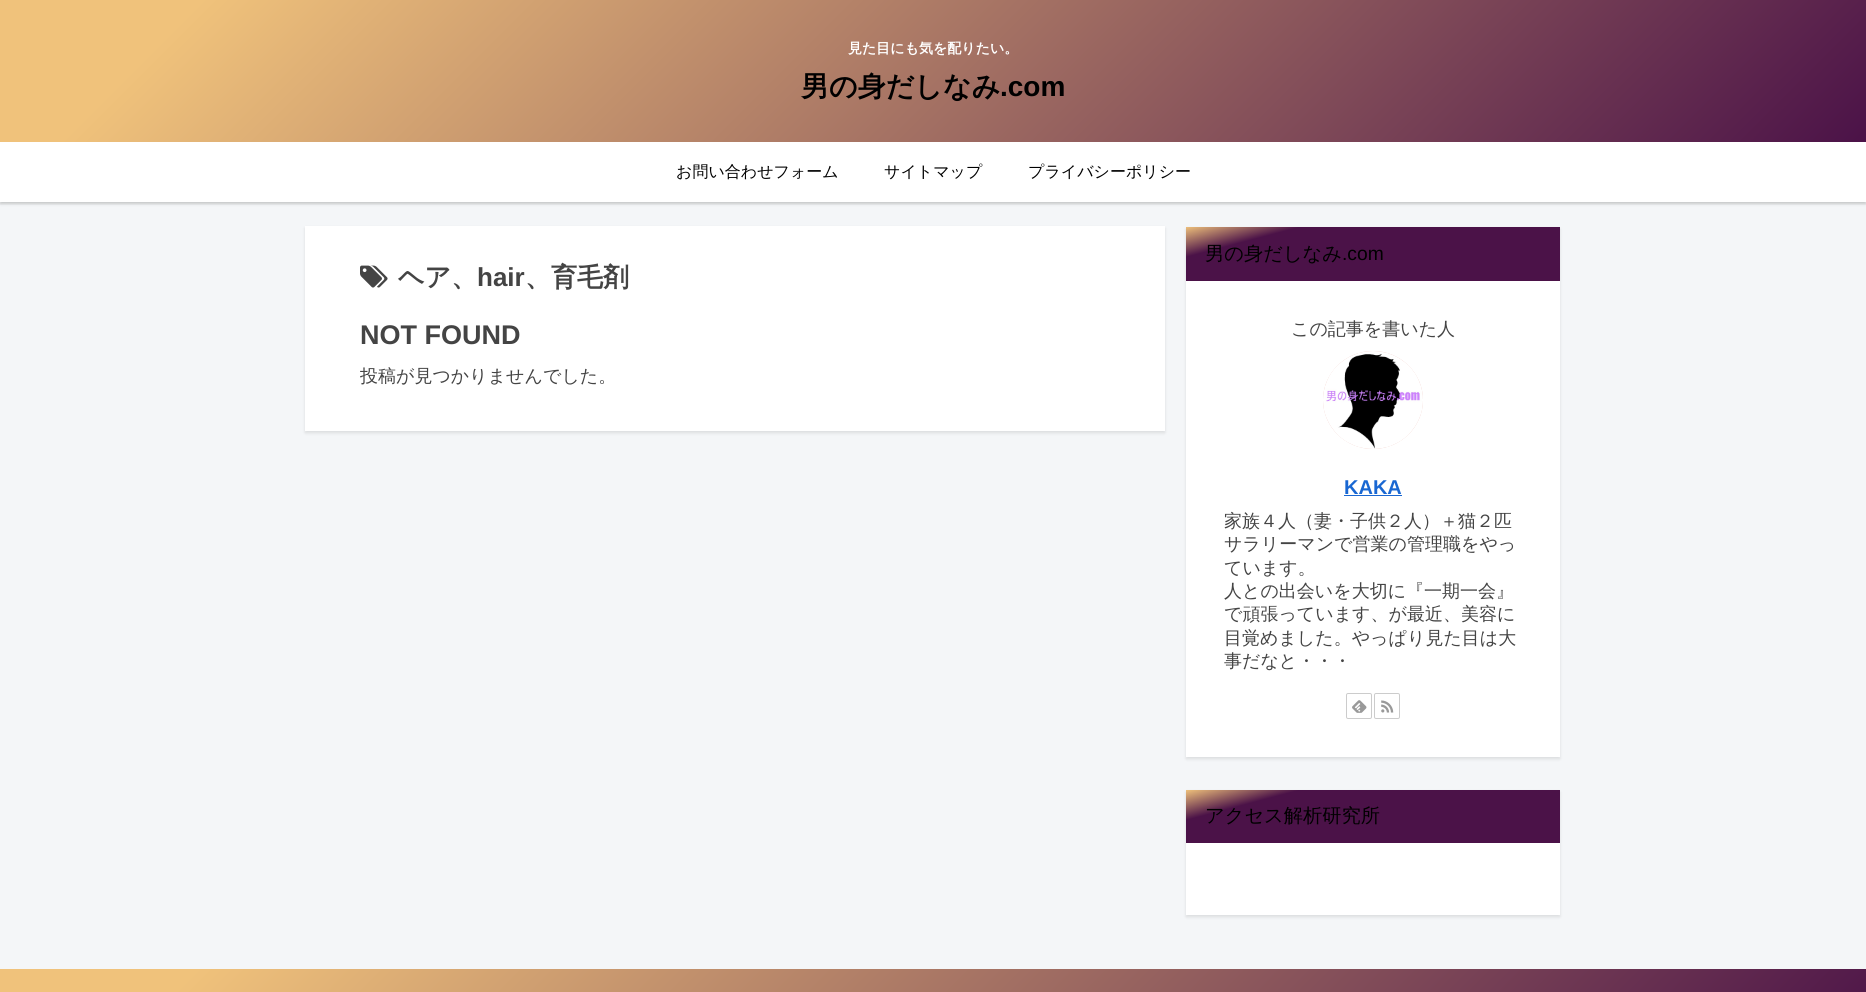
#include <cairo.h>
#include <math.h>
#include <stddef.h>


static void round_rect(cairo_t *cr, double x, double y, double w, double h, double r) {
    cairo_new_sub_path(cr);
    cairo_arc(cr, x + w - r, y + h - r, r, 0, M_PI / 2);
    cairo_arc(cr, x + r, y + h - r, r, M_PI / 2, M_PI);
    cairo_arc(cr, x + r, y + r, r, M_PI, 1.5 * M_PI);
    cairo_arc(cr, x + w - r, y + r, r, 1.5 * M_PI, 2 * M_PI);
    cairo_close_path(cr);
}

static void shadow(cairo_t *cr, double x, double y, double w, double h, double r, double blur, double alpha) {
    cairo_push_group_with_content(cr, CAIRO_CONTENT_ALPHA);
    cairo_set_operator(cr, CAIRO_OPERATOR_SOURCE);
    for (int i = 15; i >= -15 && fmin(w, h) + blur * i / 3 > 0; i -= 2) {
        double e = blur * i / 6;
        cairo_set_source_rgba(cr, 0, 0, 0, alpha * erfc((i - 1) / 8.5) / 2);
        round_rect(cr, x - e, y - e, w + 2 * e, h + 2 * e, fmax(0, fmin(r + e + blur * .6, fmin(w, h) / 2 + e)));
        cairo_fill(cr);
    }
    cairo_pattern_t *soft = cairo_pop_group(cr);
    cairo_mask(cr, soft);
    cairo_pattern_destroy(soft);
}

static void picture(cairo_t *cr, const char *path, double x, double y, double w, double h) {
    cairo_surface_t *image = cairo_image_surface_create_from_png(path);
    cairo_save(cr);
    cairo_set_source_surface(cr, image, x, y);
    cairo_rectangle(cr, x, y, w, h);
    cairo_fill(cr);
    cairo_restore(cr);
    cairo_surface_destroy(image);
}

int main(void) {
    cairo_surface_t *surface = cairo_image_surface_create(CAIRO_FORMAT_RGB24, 1866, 992);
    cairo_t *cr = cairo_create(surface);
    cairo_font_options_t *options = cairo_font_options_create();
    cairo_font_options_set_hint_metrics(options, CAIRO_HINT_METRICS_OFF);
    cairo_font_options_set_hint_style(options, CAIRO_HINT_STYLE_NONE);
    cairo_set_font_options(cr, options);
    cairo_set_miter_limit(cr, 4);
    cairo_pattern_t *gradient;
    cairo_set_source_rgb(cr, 0.957, 0.961, 0.969);
    cairo_paint(cr);
    cairo_set_source_rgb(cr, 0, 0, 0);
    shadow(cr, 0, 2, 1866, 202, 0, 1.5, 0.1);
    cairo_set_source_rgb(cr, 1, 1, 1);
    cairo_rectangle(cr, 0, 142, 1866, 60);
    cairo_fill(cr);
    gradient = cairo_pattern_create_linear(431, -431, 1435, 573);
    cairo_pattern_add_color_stop_rgba(gradient, 0.1, 0.941, 0.761, 0.482, 1);
    cairo_pattern_add_color_stop_rgba(gradient, 1, 0.294, 0.071, 0.282, 1);
    cairo_set_source(cr, gradient);
    cairo_pattern_destroy(gradient);
    cairo_rectangle(cr, 0, 0, 1866, 142);
    cairo_fill(cr);
    cairo_select_font_face(cr, "WenQuanYi Zen Hei", CAIRO_FONT_SLANT_NORMAL, CAIRO_FONT_WEIGHT_BOLD);
    cairo_set_font_size(cr, 14);
    cairo_set_source_rgb(cr, 1, 1, 1);
    cairo_move_to(cr, 848, 53);
    cairo_show_text(cr, "見た目にも気を配りたい。");
    cairo_set_font_size(cr, 28);
    cairo_set_source_rgb(cr, 0, 0, 0);
    cairo_move_to(cr, 801, 96);
    cairo_show_text(cr, "男の身だしなみ");
    cairo_select_font_face(cr, "Liberation Sans", CAIRO_FONT_SLANT_NORMAL, CAIRO_FONT_WEIGHT_BOLD);
    cairo_move_to(cr, 1000, 96);
    cairo_show_text(cr, ".com");
    cairo_save(cr);
    cairo_rectangle(cr, 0, 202, 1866, 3);
    cairo_clip(cr);
    cairo_set_source_rgb(cr, 0, 0, 0);
    shadow(cr, 0, 144, 1866, 60, 0, 1.5, 0.1);
    cairo_restore(cr);
    cairo_select_font_face(cr, "WenQuanYi Zen Hei Medium", CAIRO_FONT_SLANT_NORMAL, CAIRO_FONT_WEIGHT_NORMAL);
    cairo_set_font_size(cr, 16);
    cairo_move_to(cr, 676, 177);
    cairo_show_text(cr, "お問い合わせフォーム");
    cairo_move_to(cr, 884, 177);
    cairo_show_text(cr, "サイトマップ");
    cairo_move_to(cr, 1028, 177);
    cairo_show_text(cr, "プライバシーポリシー");
    cairo_set_source_rgb(cr, 0, 0, 0);
    shadow(cr, 305, 228, 860, 205, 0, 1.5, 0.1);
    cairo_set_source_rgb(cr, 1, 1, 1);
    cairo_rectangle(cr, 305, 226, 860, 205);
    cairo_fill(cr);
    picture(cr, "img1.png", 360, 265, 28, 23);
    cairo_select_font_face(cr, "WenQuanYi Zen Hei", CAIRO_FONT_SLANT_NORMAL, CAIRO_FONT_WEIGHT_BOLD);
    cairo_set_font_size(cr, 26);
    cairo_set_source_rgb(cr, 0.267, 0.267, 0.267);
    cairo_move_to(cr, 398, 286);
    cairo_show_text(cr, "ヘア、");
    cairo_select_font_face(cr, "Liberation Sans", CAIRO_FONT_SLANT_NORMAL, CAIRO_FONT_WEIGHT_BOLD);
    cairo_move_to(cr, 477, 286);
    cairo_show_text(cr, "hair");
    cairo_select_font_face(cr, "WenQuanYi Zen Hei", CAIRO_FONT_SLANT_NORMAL, CAIRO_FONT_WEIGHT_BOLD);
    cairo_move_to(cr, 525, 286);
    cairo_show_text(cr, "、育毛剤");
    cairo_select_font_face(cr, "Liberation Sans", CAIRO_FONT_SLANT_NORMAL, CAIRO_FONT_WEIGHT_BOLD);
    cairo_set_font_size(cr, 27);
    cairo_move_to(cr, 360, 344);
    cairo_show_text(cr, "NOT FOUND");
    cairo_select_font_face(cr, "WenQuanYi Zen Hei Medium", CAIRO_FONT_SLANT_NORMAL, CAIRO_FONT_WEIGHT_NORMAL);
    cairo_set_font_size(cr, 18);
    cairo_move_to(cr, 360, 382);
    cairo_show_text(cr, "投稿が見つかりませんでした。");
    cairo_set_source_rgb(cr, 0, 0, 0);
    shadow(cr, 1186, 229, 374, 530, 0, 1.5, 0.1);
    cairo_set_source_rgb(cr, 1, 1, 1);
    cairo_rectangle(cr, 1186, 281, 374, 476);
    cairo_fill(cr);
    gradient = cairo_pattern_create_linear(1354, 182, 1392, 326);
    cairo_pattern_add_color_stop_rgba(gradient, 0, 0.941, 0.761, 0.482, 1);
    cairo_pattern_add_color_stop_rgba(gradient, 0.2, 0.294, 0.071, 0.282, 1);
    cairo_set_source(cr, gradient);
    cairo_pattern_destroy(gradient);
    cairo_rectangle(cr, 1186, 227, 374, 54);
    cairo_fill(cr);
    cairo_set_font_size(cr, 19.25);
    cairo_set_source_rgb(cr, 0, 0, 0);
    cairo_move_to(cr, 1205, 260);
    cairo_show_text(cr, "男の身だしなみ");
    cairo_select_font_face(cr, "Liberation Sans", CAIRO_FONT_SLANT_NORMAL, CAIRO_FONT_WEIGHT_NORMAL);
    cairo_move_to(cr, 1342, 260);
    cairo_show_text(cr, ".com");
    cairo_select_font_face(cr, "WenQuanYi Zen Hei Medium", CAIRO_FONT_SLANT_NORMAL, CAIRO_FONT_WEIGHT_NORMAL);
    cairo_set_font_size(cr, 18);
    cairo_set_source_rgb(cr, 0.267, 0.267, 0.267);
    cairo_move_to(cr, 1291, 335);
    cairo_show_text(cr, "この記事を書いた人");
    cairo_set_source_rgb(cr, 0.925, 0.757, 0.733);
    cairo_new_path(cr);
    cairo_move_to(cr, 1373, 351);
    cairo_curve_to(cr, 1400.5, 351, 1423, 373, 1423, 400);
    cairo_curve_to(cr, 1423, 427, 1400.5, 449, 1373, 449);
    cairo_curve_to(cr, 1345.5, 449, 1323, 427, 1323, 400);
    cairo_curve_to(cr, 1323, 373, 1345.5, 351, 1373, 351);
    cairo_close_path(cr);
    cairo_fill(cr);
    picture(cr, "img2.png", 1323, 351, 100, 98);
    cairo_select_font_face(cr, "Liberation Sans", CAIRO_FONT_SLANT_NORMAL, CAIRO_FONT_WEIGHT_BOLD);
    cairo_set_font_size(cr, 20);
    cairo_set_source_rgb(cr, 0.098, 0.404, 0.824);
    cairo_move_to(cr, 1344, 494);
    cairo_show_text(cr, "KAKA");
    cairo_rectangle(cr, 1344, 495, 58, 1);
    cairo_fill(cr);
    cairo_select_font_face(cr, "WenQuanYi Zen Hei Medium", CAIRO_FONT_SLANT_NORMAL, CAIRO_FONT_WEIGHT_NORMAL);
    cairo_set_font_size(cr, 18);
    cairo_set_source_rgb(cr, 0.267, 0.267, 0.267);
    cairo_move_to(cr, 1224, 527);
    cairo_show_text(cr, "家族４人（妻・子供２人）＋猫２匹");
    cairo_move_to(cr, 1224, 550);
    cairo_show_text(cr, "サラリーマンで営業の管理職をやっ");
    cairo_move_to(cr, 1224, 574);
    cairo_show_text(cr, "ています。");
    cairo_move_to(cr, 1224, 597);
    cairo_show_text(cr, "人との出会いを大切に『一期一会』");
    cairo_move_to(cr, 1224, 620);
    cairo_show_text(cr, "で頑張っています、が最近、美容に");
    cairo_move_to(cr, 1224, 644);
    cairo_show_text(cr, "目覚めました。やっぱり見た目は大");
    cairo_move_to(cr, 1224, 667);
    cairo_show_text(cr, "事だなと・・・");
    round_rect(cr, 1346.5, 693.5, 25, 25, 1.5);
    cairo_set_source_rgb(cr, 0.8, 0.8, 0.8);
    cairo_set_line_width(cr, 1);
    cairo_stroke(cr);
    picture(cr, "img3.png", 1352, 700, 15, 13);
    round_rect(cr, 1374.5, 693.5, 25, 25, 1.5);
    cairo_stroke(cr);
    picture(cr, "img4.png", 1381, 700, 13, 13);
    cairo_set_source_rgb(cr, 0, 0, 0);
    shadow(cr, 1186, 792, 374, 125, 0, 1.5, 0.1);
    cairo_set_source_rgb(cr, 1, 1, 1);
    cairo_rectangle(cr, 1186, 843, 374, 72);
    cairo_fill(cr);
    gradient = cairo_pattern_create_linear(1354, 745, 1392, 888);
    cairo_pattern_add_color_stop_rgba(gradient, 0, 0.941, 0.761, 0.482, 1);
    cairo_pattern_add_color_stop_rgba(gradient, 0.2, 0.294, 0.071, 0.282, 1);
    cairo_set_source(cr, gradient);
    cairo_pattern_destroy(gradient);
    cairo_rectangle(cr, 1186, 790, 374, 53);
    cairo_fill(cr);
    cairo_set_font_size(cr, 19.25);
    cairo_set_source_rgb(cr, 0, 0, 0);
    cairo_move_to(cr, 1205, 822);
    cairo_show_text(cr, "アクセス解析研究所");
    gradient = cairo_pattern_create_linear(444, 525, 1422, 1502);
    cairo_pattern_add_color_stop_rgba(gradient, 0.1, 0.941, 0.761, 0.482, 1);
    cairo_pattern_add_color_stop_rgba(gradient, 1, 0.294, 0.071, 0.282, 1);
    cairo_set_source(cr, gradient);
    cairo_pattern_destroy(gradient);
    cairo_rectangle(cr, 0, 969, 1866, 23);
    cairo_fill(cr);
    cairo_surface_write_to_png(surface, "page.png");
    cairo_font_options_destroy(options);
    cairo_destroy(cr);
    cairo_surface_destroy(surface);
    return 0;
}
